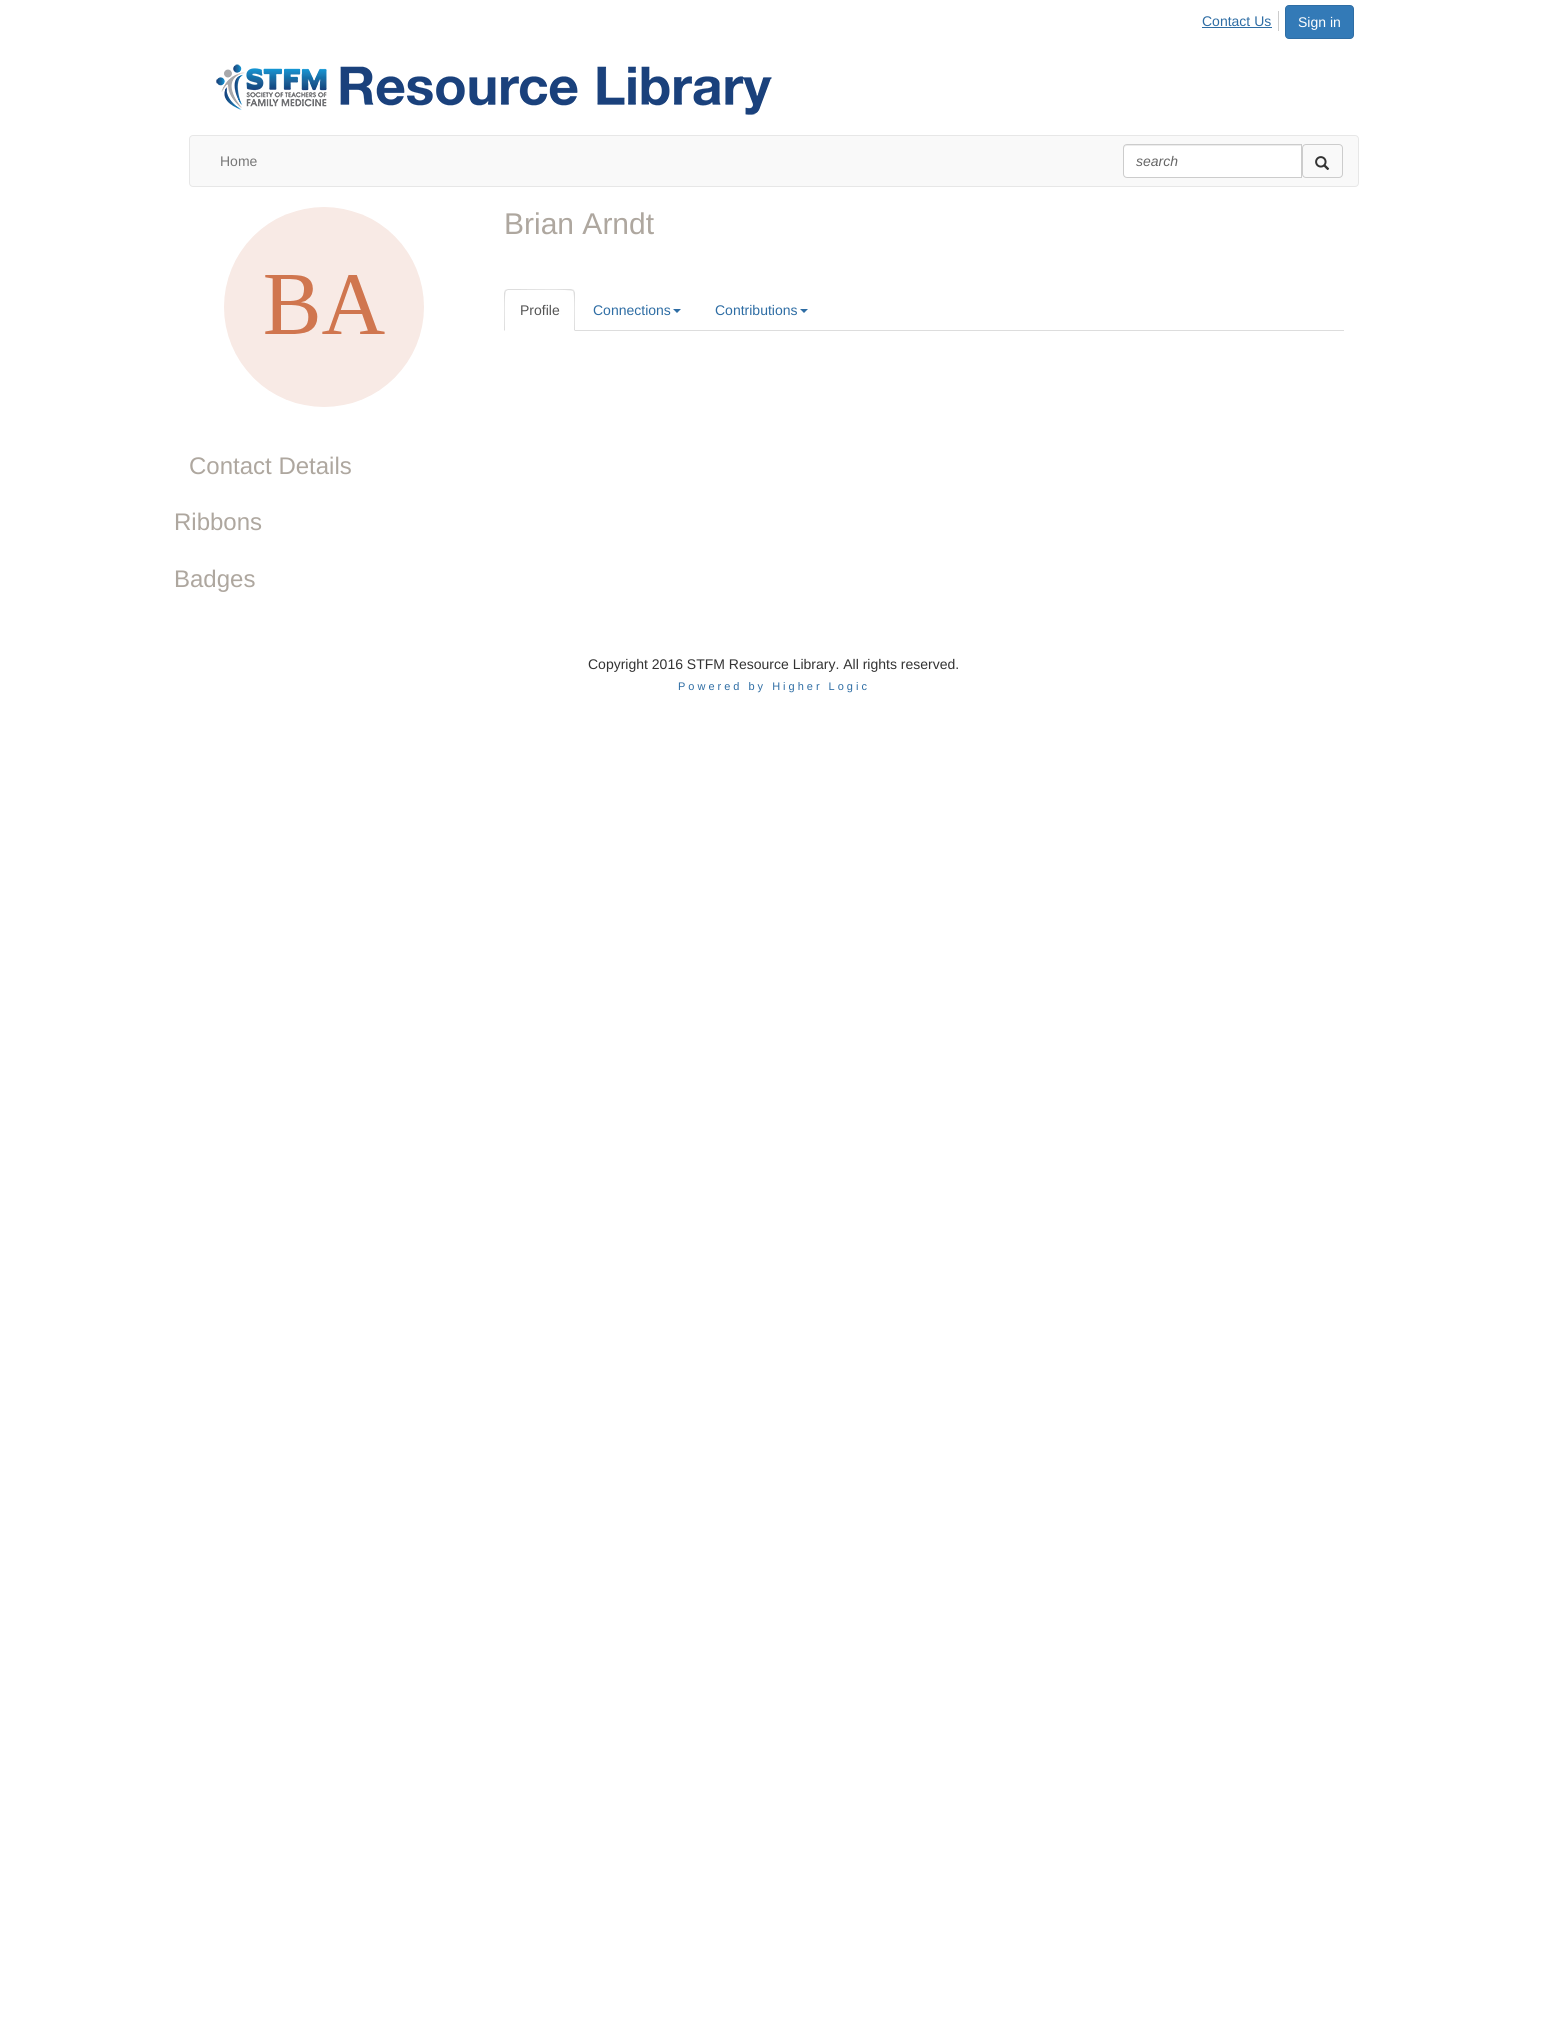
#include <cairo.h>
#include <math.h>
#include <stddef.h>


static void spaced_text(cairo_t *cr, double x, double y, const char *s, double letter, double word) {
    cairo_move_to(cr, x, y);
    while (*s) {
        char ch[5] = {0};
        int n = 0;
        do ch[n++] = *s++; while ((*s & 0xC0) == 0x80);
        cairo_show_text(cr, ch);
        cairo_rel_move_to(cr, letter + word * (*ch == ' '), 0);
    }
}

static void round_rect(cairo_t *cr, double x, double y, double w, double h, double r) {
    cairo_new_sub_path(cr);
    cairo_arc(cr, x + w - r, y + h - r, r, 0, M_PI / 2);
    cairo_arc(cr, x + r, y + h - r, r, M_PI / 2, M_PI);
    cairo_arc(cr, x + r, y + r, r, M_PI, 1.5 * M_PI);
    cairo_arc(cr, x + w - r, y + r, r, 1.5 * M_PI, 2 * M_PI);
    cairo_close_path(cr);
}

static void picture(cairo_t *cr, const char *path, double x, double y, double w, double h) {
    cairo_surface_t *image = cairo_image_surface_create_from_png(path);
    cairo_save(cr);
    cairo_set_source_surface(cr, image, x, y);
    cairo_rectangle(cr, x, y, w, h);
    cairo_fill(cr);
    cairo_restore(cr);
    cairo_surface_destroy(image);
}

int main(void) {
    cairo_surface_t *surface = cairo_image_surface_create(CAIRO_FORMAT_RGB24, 1547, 2025);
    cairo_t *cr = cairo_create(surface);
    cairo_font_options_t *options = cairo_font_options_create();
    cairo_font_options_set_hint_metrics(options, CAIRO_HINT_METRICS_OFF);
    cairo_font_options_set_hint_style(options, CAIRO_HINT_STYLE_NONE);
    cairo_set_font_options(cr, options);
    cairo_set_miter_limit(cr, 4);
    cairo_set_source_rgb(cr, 1, 1, 1);
    cairo_paint(cr);
    cairo_set_source_rgb(cr, 0.8, 0.8, 0.8);
    cairo_rectangle(cr, 1278, 11, 1, 20);
    cairo_fill(cr);
    cairo_select_font_face(cr, "Liberation Sans", CAIRO_FONT_SLANT_NORMAL, CAIRO_FONT_WEIGHT_NORMAL);
    cairo_set_font_size(cr, 14);
    cairo_set_source_rgb(cr, 0.18, 0.427, 0.643);
    cairo_move_to(cr, 1202, 26);
    cairo_show_text(cr, "Contact Us");
    cairo_rectangle(cr, 1202, 27, 70, 1);
    cairo_fill(cr);
    cairo_set_source_rgb(cr, 0.2, 0.478, 0.718);
    round_rect(cr, 1285.5, 5.5, 68, 33, 3.5);
    cairo_fill_preserve(cr);
    cairo_set_source_rgb(cr, 0.18, 0.427, 0.643);
    cairo_set_line_width(cr, 1);
    cairo_stroke(cr);
    cairo_set_source_rgb(cr, 1, 1, 1);
    cairo_move_to(cr, 1298, 27);
    cairo_show_text(cr, "Sign in");
    picture(cr, "img1.png", 216, 64, 556, 51);
    cairo_set_source_rgb(cr, 0.973, 0.973, 0.973);
    round_rect(cr, 189.5, 135.5, 1169, 51, 3.5);
    cairo_fill_preserve(cr);
    cairo_set_source_rgb(cr, 0.906, 0.906, 0.906);
    cairo_stroke(cr);
    cairo_set_source_rgb(cr, 0.467, 0.467, 0.467);
    cairo_move_to(cr, 220, 166);
    cairo_show_text(cr, "Home");
    cairo_set_source_rgb(cr, 1, 1, 1);
    cairo_new_path(cr);
    cairo_move_to(cr, 1127, 144);
    cairo_line_to(cr, 1302, 144);
    cairo_line_to(cr, 1302, 178);
    cairo_line_to(cr, 1127, 178);
    cairo_curve_to(cr, 1125, 178, 1123, 176, 1123, 174);
    cairo_line_to(cr, 1123, 148);
    cairo_curve_to(cr, 1123, 146, 1125, 144, 1127, 144);
    cairo_close_path(cr);
    cairo_fill(cr);
    cairo_set_source_rgb(cr, 0.925, 0.925, 0.925);
    cairo_new_path(cr);
    cairo_move_to(cr, 1127, 146);
    cairo_line_to(cr, 1301, 146);
    cairo_line_to(cr, 1301, 145);
    cairo_line_to(cr, 1126, 145);
    cairo_curve_to(cr, 1124, 146, 1124, 147, 1124, 149);
    cairo_curve_to(cr, 1124, 147, 1125, 146, 1127, 146);
    cairo_close_path(cr);
    cairo_fill(cr);
    cairo_new_path(cr);
    cairo_move_to(cr, 1127, 144.5);
    cairo_line_to(cr, 1301.5, 144.5);
    cairo_line_to(cr, 1301.5, 177.5);
    cairo_line_to(cr, 1127, 177.5);
    cairo_curve_to(cr, 1125, 177.5, 1123.5, 176, 1123.5, 174);
    cairo_line_to(cr, 1123.5, 148);
    cairo_curve_to(cr, 1123.5, 146, 1125, 144.5, 1127, 144.5);
    cairo_close_path(cr);
    cairo_set_source_rgb(cr, 0.8, 0.8, 0.8);
    cairo_stroke(cr);
    cairo_select_font_face(cr, "Liberation Sans", CAIRO_FONT_SLANT_ITALIC, CAIRO_FONT_WEIGHT_NORMAL);
    cairo_set_source_rgb(cr, 0.4, 0.4, 0.4);
    cairo_move_to(cr, 1136, 166);
    cairo_show_text(cr, "search");
    round_rect(cr, 1302.5, 144.5, 40, 33, 3.5);
    cairo_set_source_rgb(cr, 0.8, 0.8, 0.8);
    cairo_stroke(cr);
    picture(cr, "img2.png", 1315, 156, 15, 14);
    cairo_select_font_face(cr, "Liberation Sans", CAIRO_FONT_SLANT_NORMAL, CAIRO_FONT_WEIGHT_NORMAL);
    cairo_set_font_size(cr, 30);
    cairo_set_source_rgb(cr, 0.682, 0.655, 0.624);
    cairo_move_to(cr, 504, 234);
    cairo_show_text(cr, "Brian Arndt");
    cairo_set_source_rgb(cr, 0.867, 0.867, 0.867);
    cairo_rectangle(cr, 575, 330, 769, 1);
    cairo_fill(cr);
    cairo_new_path(cr);
    cairo_move_to(cr, 508, 289);
    cairo_line_to(cr, 505, 290);
    cairo_line_to(cr, 506, 291);
    cairo_line_to(cr, 508, 290);
    cairo_line_to(cr, 518, 290);
    cairo_curve_to(cr, 525, 290, 571, 289, 573, 291);
    cairo_line_to(cr, 574, 290);
    cairo_line_to(cr, 571, 289);
    cairo_close_path(cr);
    cairo_fill(cr);
    cairo_new_path(cr);
    cairo_move_to(cr, 575, 331);
    cairo_line_to(cr, 575, 293);
    cairo_curve_to(cr, 575, 292, 574, 291, 574, 290);
    cairo_line_to(cr, 573, 291);
    cairo_curve_to(cr, 575, 293, 574, 325, 574, 330);
    cairo_close_path(cr);
    cairo_fill(cr);
    cairo_new_path(cr);
    cairo_move_to(cr, 504, 331);
    cairo_line_to(cr, 505, 330);
    cairo_curve_to(cr, 505, 325, 504, 293, 506, 291);
    cairo_line_to(cr, 505, 290);
    cairo_line_to(cr, 504, 293);
    cairo_close_path(cr);
    cairo_fill(cr);
    cairo_set_font_size(cr, 14);
    cairo_set_source_rgb(cr, 0.333, 0.333, 0.333);
    cairo_move_to(cr, 520, 315);
    cairo_show_text(cr, "Profile");
    cairo_set_source_rgb(cr, 0.18, 0.427, 0.643);
    cairo_move_to(cr, 593, 315);
    cairo_show_text(cr, "Connections");
    cairo_new_path(cr);
    cairo_move_to(cr, 673, 309);
    cairo_line_to(cr, 681, 309);
    cairo_line_to(cr, 677, 313);
    cairo_close_path(cr);
    cairo_fill(cr);
    cairo_move_to(cr, 715, 315);
    cairo_show_text(cr, "Contributions");
    cairo_new_path(cr);
    cairo_move_to(cr, 800, 309);
    cairo_line_to(cr, 808, 309);
    cairo_line_to(cr, 804, 313);
    cairo_close_path(cr);
    cairo_fill(cr);
    picture(cr, "img3.png", 224, 207, 200, 200);
    cairo_set_font_size(cr, 24);
    cairo_set_source_rgb(cr, 0.682, 0.655, 0.624);
    cairo_move_to(cr, 189, 474);
    cairo_show_text(cr, "Contact Details");
    cairo_move_to(cr, 174, 530);
    cairo_show_text(cr, "Ribbons");
    cairo_move_to(cr, 174, 587);
    cairo_show_text(cr, "Badges");
    cairo_set_font_size(cr, 14);
    cairo_set_source_rgb(cr, 0.2, 0.2, 0.2);
    cairo_move_to(cr, 588, 669);
    cairo_show_text(cr, "Copyright 2016 STFM Resource Library. All rights reserved.");
    cairo_set_font_size(cr, 11);
    cairo_set_source_rgb(cr, 0.18, 0.427, 0.643);
    spaced_text(cr, 678, 690, "Powered by Higher Logic", 3, 0);
    cairo_surface_write_to_png(surface, "page.png");
    cairo_font_options_destroy(options);
    cairo_destroy(cr);
    cairo_surface_destroy(surface);
    return 0;
}
